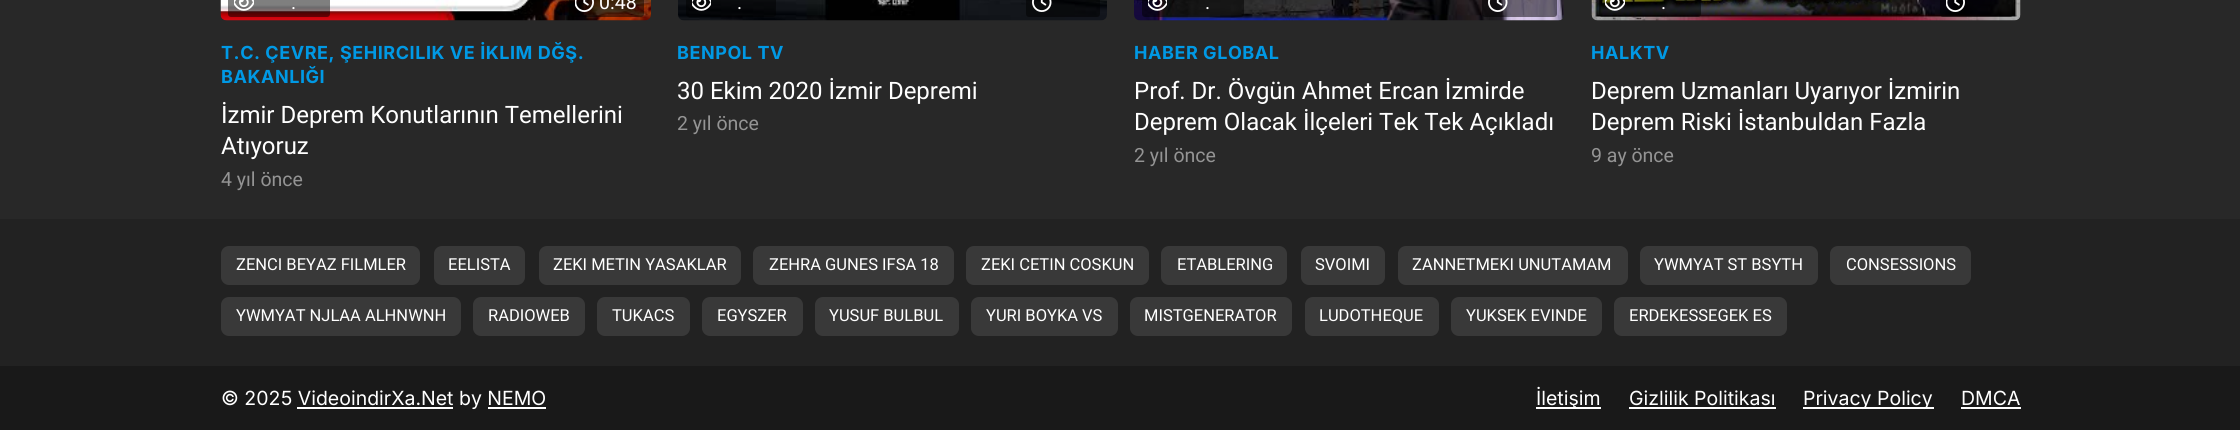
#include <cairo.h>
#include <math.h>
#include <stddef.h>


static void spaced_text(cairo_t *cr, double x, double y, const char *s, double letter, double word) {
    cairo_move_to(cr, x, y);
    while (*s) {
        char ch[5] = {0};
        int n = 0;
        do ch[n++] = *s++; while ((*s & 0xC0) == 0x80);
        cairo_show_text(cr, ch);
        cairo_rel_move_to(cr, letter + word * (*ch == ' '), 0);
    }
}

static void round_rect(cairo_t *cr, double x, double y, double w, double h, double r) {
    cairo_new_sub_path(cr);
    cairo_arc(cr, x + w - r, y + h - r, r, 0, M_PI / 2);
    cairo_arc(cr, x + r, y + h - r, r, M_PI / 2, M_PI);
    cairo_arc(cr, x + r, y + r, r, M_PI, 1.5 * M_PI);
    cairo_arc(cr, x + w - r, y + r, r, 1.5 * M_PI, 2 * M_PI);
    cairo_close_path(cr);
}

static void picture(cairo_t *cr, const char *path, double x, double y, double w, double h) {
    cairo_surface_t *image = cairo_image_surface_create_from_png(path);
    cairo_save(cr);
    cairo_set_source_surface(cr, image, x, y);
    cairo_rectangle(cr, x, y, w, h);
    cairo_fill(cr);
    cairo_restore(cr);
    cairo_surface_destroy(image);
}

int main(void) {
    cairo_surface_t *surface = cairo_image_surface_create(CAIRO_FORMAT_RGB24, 2240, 430);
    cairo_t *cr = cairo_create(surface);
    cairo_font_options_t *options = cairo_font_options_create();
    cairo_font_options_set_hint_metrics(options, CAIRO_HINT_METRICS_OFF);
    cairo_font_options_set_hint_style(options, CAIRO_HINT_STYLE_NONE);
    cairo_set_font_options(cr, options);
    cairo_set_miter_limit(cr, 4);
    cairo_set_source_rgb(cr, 0.157, 0.157, 0.157);
    cairo_paint(cr);
    picture(cr, "img1.png", 220, 0, 431, 21);
    cairo_set_source_rgba(cr, 0, 0, 0, 0.5);
    round_rect(cr, 228, -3, 102, 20, 3);
    cairo_fill(cr);
    picture(cr, "img2.png", 234, 0, 20, 11);
    cairo_select_font_face(cr, "Roboto", CAIRO_FONT_SLANT_NORMAL, CAIRO_FONT_WEIGHT_NORMAL);
    cairo_set_font_size(cr, 19.5);
    cairo_set_source_rgb(cr, 1, 1, 1);
    cairo_move_to(cr, 291, 9);
    cairo_show_text(cr, ".");
    cairo_set_source_rgba(cr, 0, 0, 0, 0.5);
    round_rect(cr, 569, -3, 75, 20, 3);
    cairo_fill(cr);
    picture(cr, "img3.png", 575, 0, 19, 12);
    cairo_set_source_rgb(cr, 1, 1, 1);
    cairo_move_to(cr, 599, 9);
    cairo_show_text(cr, "0:48");
    cairo_select_font_face(cr, "Inter", CAIRO_FONT_SLANT_NORMAL, CAIRO_FONT_WEIGHT_BOLD);
    cairo_set_font_size(cr, 18);
    cairo_set_source_rgb(cr, 0, 0.6, 0.898);
    spaced_text(cr, 221, 59, "T.C. ÇEVRE, ŞEHIRCILIK VE İKLIM DĞŞ.", 0.55, 0);
    spaced_text(cr, 221, 83, "BAKANLIĞI", 0.55, 0);
    cairo_select_font_face(cr, "Roboto", CAIRO_FONT_SLANT_NORMAL, CAIRO_FONT_WEIGHT_NORMAL);
    cairo_set_font_size(cr, 24);
    cairo_set_source_rgb(cr, 1, 1, 1);
    cairo_move_to(cr, 221, 123);
    cairo_show_text(cr, "İzmir Deprem Konutlarının Temellerini");
    cairo_move_to(cr, 221, 154);
    cairo_show_text(cr, "Atıyoruz");
    cairo_set_font_size(cr, 19.5);
    cairo_set_source_rgb(cr, 0.58, 0.58, 0.58);
    cairo_move_to(cr, 221, 186);
    cairo_show_text(cr, "4 yıl önce");
    picture(cr, "img5.png", 678, 0, 429, 21);
    cairo_set_source_rgba(cr, 0, 0, 0, 0.5);
    round_rect(cr, 1026, -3, 74, 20, 3);
    cairo_fill(cr);
    picture(cr, "img4.png", 1032, 0, 20, 12);
    round_rect(cr, 686, -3, 90, 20, 3);
    cairo_fill(cr);
    picture(cr, "img6.png", 692, 0, 19, 11);
    cairo_set_source_rgb(cr, 1, 1, 1);
    cairo_move_to(cr, 737, 9);
    cairo_show_text(cr, ".");
    cairo_select_font_face(cr, "Inter", CAIRO_FONT_SLANT_NORMAL, CAIRO_FONT_WEIGHT_BOLD);
    cairo_set_font_size(cr, 18);
    cairo_set_source_rgb(cr, 0, 0.6, 0.898);
    spaced_text(cr, 677, 59, "BENPOL TV", 0.55, 0);
    cairo_select_font_face(cr, "Roboto", CAIRO_FONT_SLANT_NORMAL, CAIRO_FONT_WEIGHT_NORMAL);
    cairo_set_font_size(cr, 24);
    cairo_set_source_rgb(cr, 1, 1, 1);
    cairo_move_to(cr, 677, 99);
    cairo_show_text(cr, "30 Ekim 2020 İzmir Depremi");
    cairo_set_font_size(cr, 19.5);
    cairo_set_source_rgb(cr, 0.58, 0.58, 0.58);
    cairo_move_to(cr, 677, 130);
    cairo_show_text(cr, "2 yıl önce");
    picture(cr, "img8.png", 1134, 0, 430, 21);
    cairo_set_source_rgba(cr, 0, 0, 0, 0.5);
    round_rect(cr, 1482, -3, 75, 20, 3);
    cairo_fill(cr);
    picture(cr, "img7.png", 1488, 0, 20, 12);
    round_rect(cr, 1142, -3, 102, 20, 3);
    cairo_fill(cr);
    picture(cr, "img9.png", 1148, 0, 19, 11);
    cairo_set_source_rgb(cr, 1, 1, 1);
    cairo_move_to(cr, 1205, 9);
    cairo_show_text(cr, ".");
    cairo_select_font_face(cr, "Inter", CAIRO_FONT_SLANT_NORMAL, CAIRO_FONT_WEIGHT_BOLD);
    cairo_set_font_size(cr, 18);
    cairo_set_source_rgb(cr, 0, 0.6, 0.898);
    spaced_text(cr, 1134, 59, "HABER GLOBAL", 0.55, 0);
    cairo_select_font_face(cr, "Roboto", CAIRO_FONT_SLANT_NORMAL, CAIRO_FONT_WEIGHT_NORMAL);
    cairo_set_font_size(cr, 24);
    cairo_set_source_rgb(cr, 1, 1, 1);
    cairo_move_to(cr, 1134, 99);
    cairo_show_text(cr, "Prof. Dr. Övgün Ahmet Ercan İzmirde");
    cairo_move_to(cr, 1134, 130);
    cairo_show_text(cr, "Deprem Olacak İlçeleri Tek Tek Açıkladı");
    cairo_set_font_size(cr, 19.5);
    cairo_set_source_rgb(cr, 0.58, 0.58, 0.58);
    cairo_move_to(cr, 1134, 162);
    cairo_show_text(cr, "2 yıl önce");
    picture(cr, "img11.png", 1591, 0, 430, 21);
    cairo_set_source_rgba(cr, 0, 0, 0, 0.5);
    round_rect(cr, 1940, -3, 73, 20, 3);
    cairo_fill(cr);
    picture(cr, "img10.png", 1946, 0, 19, 12);
    round_rect(cr, 1599, -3, 102, 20, 3);
    cairo_fill(cr);
    picture(cr, "img12.png", 1605, 0, 20, 11);
    cairo_set_source_rgb(cr, 1, 1, 1);
    cairo_move_to(cr, 1661, 9);
    cairo_show_text(cr, ".");
    cairo_select_font_face(cr, "Inter", CAIRO_FONT_SLANT_NORMAL, CAIRO_FONT_WEIGHT_BOLD);
    cairo_set_font_size(cr, 18);
    cairo_set_source_rgb(cr, 0, 0.6, 0.898);
    spaced_text(cr, 1591, 59, "HALKTV", 0.55, 0);
    cairo_select_font_face(cr, "Roboto", CAIRO_FONT_SLANT_NORMAL, CAIRO_FONT_WEIGHT_NORMAL);
    cairo_set_font_size(cr, 24);
    cairo_set_source_rgb(cr, 1, 1, 1);
    cairo_move_to(cr, 1591, 99);
    cairo_show_text(cr, "Deprem Uzmanları Uyarıyor İzmirin");
    cairo_move_to(cr, 1591, 130);
    cairo_show_text(cr, "Deprem Riski İstanbuldan Fazla");
    cairo_set_font_size(cr, 19.5);
    cairo_set_source_rgb(cr, 0.58, 0.58, 0.58);
    cairo_move_to(cr, 1591, 162);
    cairo_show_text(cr, "9 ay önce");
    cairo_set_source_rgb(cr, 0.133, 0.133, 0.133);
    cairo_rectangle(cr, 0, 219, 2240, 147);
    cairo_fill(cr);
    cairo_set_source_rgb(cr, 0.224, 0.224, 0.224);
    round_rect(cr, 221, 246, 199, 39, 8);
    cairo_fill(cr);
    cairo_set_font_size(cr, 16.5);
    cairo_set_source_rgb(cr, 1, 1, 1);
    cairo_move_to(cr, 236, 270);
    cairo_show_text(cr, "ZENCI BEYAZ FILMLER");
    cairo_set_source_rgb(cr, 0.224, 0.224, 0.224);
    round_rect(cr, 434, 246, 91, 39, 8);
    cairo_fill(cr);
    cairo_set_source_rgb(cr, 1, 1, 1);
    cairo_move_to(cr, 448, 270);
    cairo_show_text(cr, "EELISTA");
    cairo_set_source_rgb(cr, 0.224, 0.224, 0.224);
    round_rect(cr, 539, 246, 202, 39, 8);
    cairo_fill(cr);
    cairo_set_source_rgb(cr, 1, 1, 1);
    cairo_move_to(cr, 553, 270);
    cairo_show_text(cr, "ZEKI METIN YASAKLAR");
    cairo_set_source_rgb(cr, 0.224, 0.224, 0.224);
    round_rect(cr, 753, 246, 201, 39, 8);
    cairo_fill(cr);
    cairo_set_source_rgb(cr, 1, 1, 1);
    cairo_move_to(cr, 769, 270);
    cairo_show_text(cr, "ZEHRA GUNES IFSA 18");
    cairo_set_source_rgb(cr, 0.224, 0.224, 0.224);
    round_rect(cr, 966, 246, 183, 39, 8);
    cairo_fill(cr);
    cairo_set_source_rgb(cr, 1, 1, 1);
    cairo_move_to(cr, 981, 270);
    cairo_show_text(cr, "ZEKI CETIN COSKUN");
    cairo_set_source_rgb(cr, 0.224, 0.224, 0.224);
    round_rect(cr, 1161, 246, 126, 39, 8);
    cairo_fill(cr);
    cairo_set_source_rgb(cr, 1, 1, 1);
    cairo_move_to(cr, 1177, 270);
    cairo_show_text(cr, "ETABLERING");
    cairo_set_source_rgb(cr, 0.224, 0.224, 0.224);
    round_rect(cr, 1301, 246, 84, 39, 8);
    cairo_fill(cr);
    cairo_set_source_rgb(cr, 1, 1, 1);
    cairo_move_to(cr, 1315, 270);
    cairo_show_text(cr, "SVOIMI");
    cairo_set_source_rgb(cr, 0.224, 0.224, 0.224);
    round_rect(cr, 1398, 246, 230, 39, 8);
    cairo_fill(cr);
    cairo_set_source_rgb(cr, 1, 1, 1);
    cairo_move_to(cr, 1412, 270);
    cairo_show_text(cr, "ZANNETMEKI UNUTAMAM");
    cairo_set_source_rgb(cr, 0.224, 0.224, 0.224);
    round_rect(cr, 1640, 246, 178, 39, 8);
    cairo_fill(cr);
    cairo_set_source_rgb(cr, 1, 1, 1);
    cairo_move_to(cr, 1654, 270);
    cairo_show_text(cr, "YWMYAT ST BSYTH");
    cairo_set_source_rgb(cr, 0.224, 0.224, 0.224);
    round_rect(cr, 1830, 246, 141, 39, 8);
    cairo_fill(cr);
    cairo_set_source_rgb(cr, 1, 1, 1);
    cairo_move_to(cr, 1846, 270);
    cairo_show_text(cr, "CONSESSIONS");
    cairo_set_source_rgb(cr, 0.224, 0.224, 0.224);
    round_rect(cr, 221, 297, 240, 39, 8);
    cairo_fill(cr);
    cairo_set_source_rgb(cr, 1, 1, 1);
    cairo_move_to(cr, 236, 321);
    cairo_show_text(cr, "YWMYAT NJLAA ALHNWNH");
    cairo_set_source_rgb(cr, 0.224, 0.224, 0.224);
    round_rect(cr, 473, 297, 112, 39, 8);
    cairo_fill(cr);
    cairo_set_source_rgb(cr, 1, 1, 1);
    cairo_move_to(cr, 488, 321);
    cairo_show_text(cr, "RADIOWEB");
    cairo_set_source_rgb(cr, 0.224, 0.224, 0.224);
    round_rect(cr, 597, 297, 93, 39, 8);
    cairo_fill(cr);
    cairo_set_source_rgb(cr, 1, 1, 1);
    cairo_move_to(cr, 612, 321);
    cairo_show_text(cr, "TUKACS");
    cairo_set_source_rgb(cr, 0.224, 0.224, 0.224);
    round_rect(cr, 702, 297, 101, 39, 8);
    cairo_fill(cr);
    cairo_set_source_rgb(cr, 1, 1, 1);
    cairo_move_to(cr, 717, 321);
    cairo_show_text(cr, "EGYSZER");
    cairo_set_source_rgb(cr, 0.224, 0.224, 0.224);
    round_rect(cr, 815, 297, 144, 39, 8);
    cairo_fill(cr);
    cairo_set_source_rgb(cr, 1, 1, 1);
    cairo_move_to(cr, 829, 321);
    cairo_show_text(cr, "YUSUF BULBUL");
    cairo_set_source_rgb(cr, 0.224, 0.224, 0.224);
    round_rect(cr, 971, 297, 147, 39, 8);
    cairo_fill(cr);
    cairo_set_source_rgb(cr, 1, 1, 1);
    cairo_move_to(cr, 986, 321);
    cairo_show_text(cr, "YURI BOYKA VS");
    cairo_set_source_rgb(cr, 0.224, 0.224, 0.224);
    round_rect(cr, 1130, 297, 162, 39, 8);
    cairo_fill(cr);
    cairo_set_source_rgb(cr, 1, 1, 1);
    cairo_move_to(cr, 1144, 321);
    cairo_show_text(cr, "MISTGENERATOR");
    cairo_set_source_rgb(cr, 0.224, 0.224, 0.224);
    round_rect(cr, 1305, 297, 134, 39, 8);
    cairo_fill(cr);
    cairo_set_source_rgb(cr, 1, 1, 1);
    cairo_move_to(cr, 1319, 321);
    cairo_show_text(cr, "LUDOTHEQUE");
    cairo_set_source_rgb(cr, 0.224, 0.224, 0.224);
    round_rect(cr, 1451, 297, 151, 39, 8);
    cairo_fill(cr);
    cairo_set_source_rgb(cr, 1, 1, 1);
    cairo_move_to(cr, 1466, 321);
    cairo_show_text(cr, "YUKSEK EVINDE");
    cairo_set_source_rgb(cr, 0.224, 0.224, 0.224);
    round_rect(cr, 1614, 297, 173, 39, 8);
    cairo_fill(cr);
    cairo_set_source_rgb(cr, 1, 1, 1);
    cairo_move_to(cr, 1629, 321);
    cairo_show_text(cr, "ERDEKESSEGEK ES");
    cairo_set_source_rgb(cr, 0.098, 0.098, 0.098);
    cairo_rectangle(cr, 0, 366, 2240, 64);
    cairo_fill(cr);
    cairo_select_font_face(cr, "Inter", CAIRO_FONT_SLANT_NORMAL, CAIRO_FONT_WEIGHT_NORMAL);
    cairo_set_font_size(cr, 19.5);
    cairo_set_source_rgb(cr, 1, 1, 1);
    cairo_move_to(cr, 221, 405);
    cairo_show_text(cr, "© 2025 VideoindirXa.Net by NEMO");
    cairo_rectangle(cr, 297, 407, 156, 2);
    cairo_fill(cr);
    cairo_rectangle(cr, 488, 407, 58, 2);
    cairo_fill(cr);
    cairo_rectangle(cr, 1536, 407, 65, 2);
    cairo_fill(cr);
    cairo_move_to(cr, 1536, 405);
    cairo_show_text(cr, "İletişim");
    cairo_move_to(cr, 1629, 405);
    cairo_show_text(cr, "Gizlilik Politikası");
    cairo_rectangle(cr, 1629, 407, 147, 2);
    cairo_fill(cr);
    cairo_rectangle(cr, 1803, 407, 131, 2);
    cairo_fill(cr);
    cairo_move_to(cr, 1803, 405);
    cairo_show_text(cr, "Privacy Policy");
    cairo_move_to(cr, 1961, 405);
    cairo_show_text(cr, "DMCA");
    cairo_rectangle(cr, 1961, 407, 60, 2);
    cairo_fill(cr);
    cairo_surface_write_to_png(surface, "page.png");
    cairo_font_options_destroy(options);
    cairo_destroy(cr);
    cairo_surface_destroy(surface);
    return 0;
}
